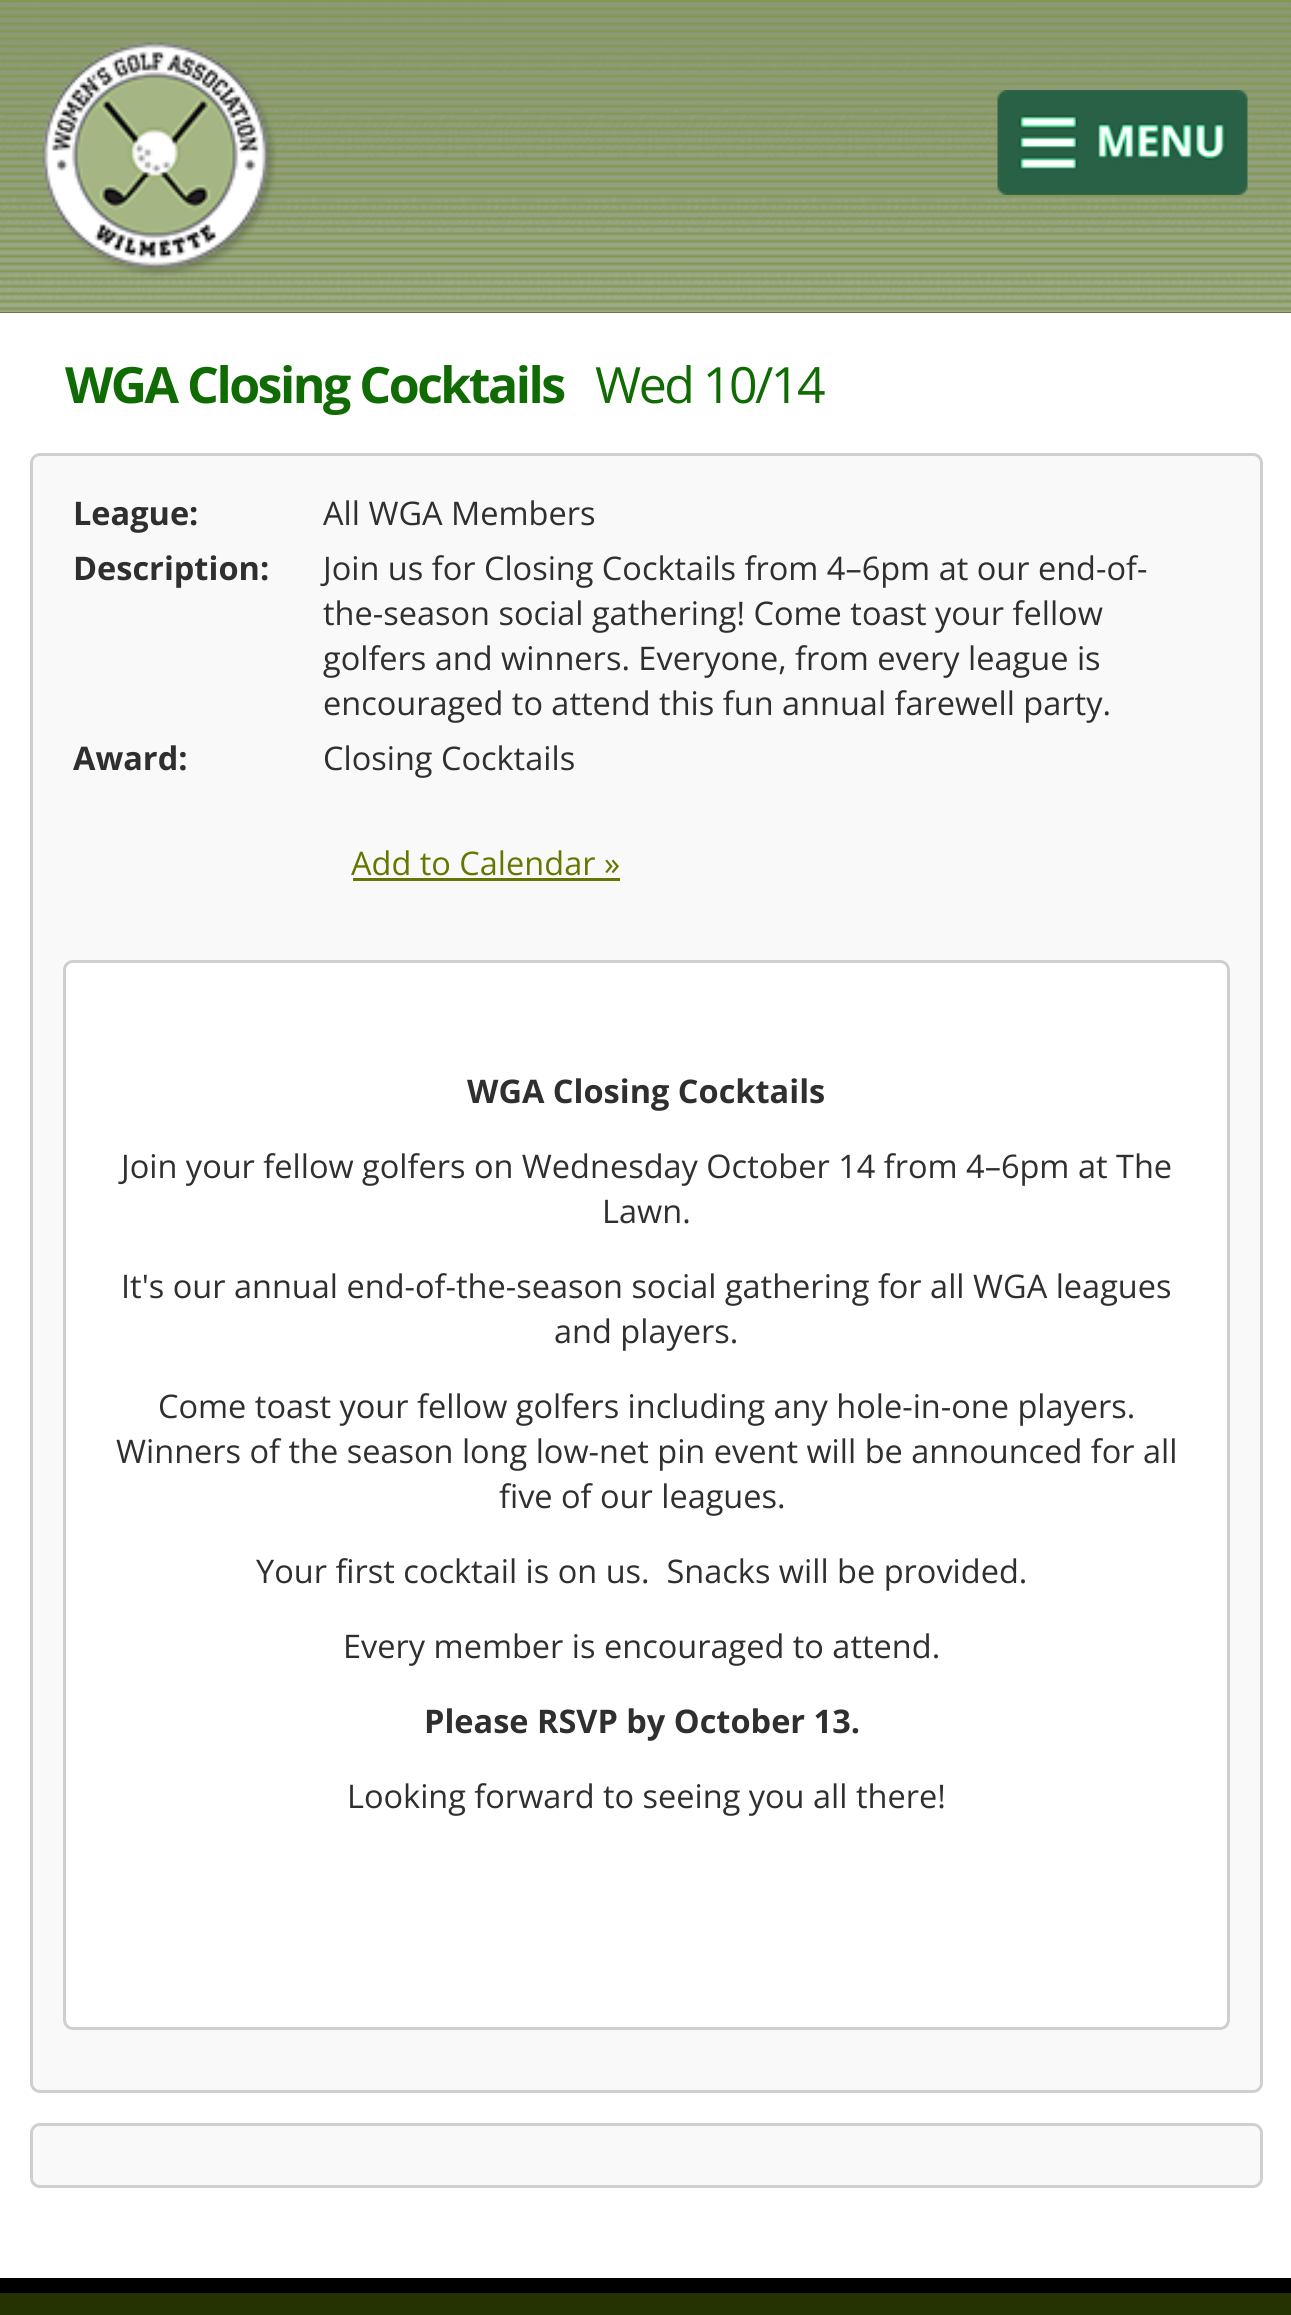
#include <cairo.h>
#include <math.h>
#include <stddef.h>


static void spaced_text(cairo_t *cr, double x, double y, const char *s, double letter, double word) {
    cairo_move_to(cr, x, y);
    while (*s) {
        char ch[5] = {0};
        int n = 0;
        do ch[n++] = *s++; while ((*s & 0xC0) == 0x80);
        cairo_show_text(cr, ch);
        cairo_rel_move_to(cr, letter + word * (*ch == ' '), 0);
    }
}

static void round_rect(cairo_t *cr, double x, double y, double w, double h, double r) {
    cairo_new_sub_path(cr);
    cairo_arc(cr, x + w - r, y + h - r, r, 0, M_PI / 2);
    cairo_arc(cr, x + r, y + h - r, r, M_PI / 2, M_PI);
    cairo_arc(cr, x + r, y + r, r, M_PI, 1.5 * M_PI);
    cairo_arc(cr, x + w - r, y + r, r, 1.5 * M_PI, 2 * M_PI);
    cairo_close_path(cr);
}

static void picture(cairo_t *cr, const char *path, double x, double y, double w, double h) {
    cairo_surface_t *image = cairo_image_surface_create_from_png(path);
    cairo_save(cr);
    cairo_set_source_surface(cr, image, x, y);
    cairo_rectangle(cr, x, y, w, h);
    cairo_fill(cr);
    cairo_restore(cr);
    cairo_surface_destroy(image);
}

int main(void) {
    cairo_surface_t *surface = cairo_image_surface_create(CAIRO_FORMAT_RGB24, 1291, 2315);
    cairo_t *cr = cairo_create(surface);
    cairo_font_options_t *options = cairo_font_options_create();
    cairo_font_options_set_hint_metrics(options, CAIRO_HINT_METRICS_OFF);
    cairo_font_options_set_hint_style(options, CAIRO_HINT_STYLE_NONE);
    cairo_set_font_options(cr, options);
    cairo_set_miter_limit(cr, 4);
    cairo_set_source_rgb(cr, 0, 0, 0);
    cairo_paint(cr);
    picture(cr, "img1.png", 0, 0, 1291, 313);
    picture(cr, "img2.png", 42, 42, 234, 234);
    picture(cr, "img3.png", 997, 90, 251, 105);
    picture(cr, "img4.png", 0, 312, 1291, 1);
    cairo_set_source_rgb(cr, 1, 1, 1);
    cairo_rectangle(cr, 0, 313, 1291, 1965);
    cairo_fill(cr);
    cairo_select_font_face(cr, "Open Sans", CAIRO_FONT_SLANT_NORMAL, CAIRO_FONT_WEIGHT_BOLD);
    cairo_set_font_size(cr, 50);
    cairo_set_source_rgb(cr, 0.067, 0.42, 0.016);
    spaced_text(cr, 65, 403, "WGA Closing Cocktails", -2.5, 0);
    cairo_select_font_face(cr, "Open Sans", CAIRO_FONT_SLANT_NORMAL, CAIRO_FONT_WEIGHT_NORMAL);
    spaced_text(cr, 595, 403, "Wed 10/14", -2.5, 0);
    cairo_set_source_rgb(cr, 0.973, 0.973, 0.973);
    round_rect(cr, 31.5, 454.5, 1230, 1637, 8.5);
    cairo_fill_preserve(cr);
    cairo_set_source_rgb(cr, 0.812, 0.812, 0.812);
    cairo_set_line_width(cr, 3);
    cairo_stroke(cr);
    cairo_select_font_face(cr, "Open Sans", CAIRO_FONT_SLANT_NORMAL, CAIRO_FONT_WEIGHT_BOLD);
    cairo_set_font_size(cr, 32.5);
    cairo_set_source_rgb(cr, 0.184, 0.184, 0.184);
    cairo_move_to(cr, 73, 525);
    cairo_show_text(cr, "League:");
    cairo_select_font_face(cr, "Open Sans", CAIRO_FONT_SLANT_NORMAL, CAIRO_FONT_WEIGHT_NORMAL);
    cairo_move_to(cr, 323, 525);
    cairo_show_text(cr, "All WGA Members");
    cairo_select_font_face(cr, "Open Sans", CAIRO_FONT_SLANT_NORMAL, CAIRO_FONT_WEIGHT_BOLD);
    cairo_move_to(cr, 73, 580);
    cairo_show_text(cr, "Description:");
    cairo_select_font_face(cr, "Open Sans", CAIRO_FONT_SLANT_NORMAL, CAIRO_FONT_WEIGHT_NORMAL);
    cairo_move_to(cr, 323, 580);
    cairo_show_text(cr, "Join us for Closing Cocktails from 4–6pm at our end-of-");
    cairo_move_to(cr, 323, 625);
    cairo_show_text(cr, "the-season social gathering! Come toast your fellow");
    cairo_move_to(cr, 323, 670);
    cairo_show_text(cr, "golfers and winners. Everyone, from every league is");
    cairo_move_to(cr, 323, 715);
    cairo_show_text(cr, "encouraged to attend this fun annual farewell party.");
    cairo_select_font_face(cr, "Open Sans", CAIRO_FONT_SLANT_NORMAL, CAIRO_FONT_WEIGHT_BOLD);
    cairo_move_to(cr, 73, 770);
    cairo_show_text(cr, "Award:");
    cairo_select_font_face(cr, "Open Sans", CAIRO_FONT_SLANT_NORMAL, CAIRO_FONT_WEIGHT_NORMAL);
    cairo_move_to(cr, 323, 770);
    cairo_show_text(cr, "Closing Cocktails");
    cairo_set_source_rgb(cr, 0.404, 0.463, 0);
    cairo_move_to(cr, 351, 875);
    cairo_show_text(cr, "Add to Calendar »");
    cairo_rectangle(cr, 353, 878, 267, 3);
    cairo_fill(cr);
    cairo_set_source_rgb(cr, 1, 1, 1);
    round_rect(cr, 64.5, 961.5, 1164, 1067, 8.5);
    cairo_fill_preserve(cr);
    cairo_set_source_rgb(cr, 0.812, 0.812, 0.812);
    cairo_stroke(cr);
    cairo_select_font_face(cr, "Open Sans", CAIRO_FONT_SLANT_NORMAL, CAIRO_FONT_WEIGHT_BOLD);
    cairo_set_source_rgb(cr, 0.184, 0.184, 0.184);
    cairo_move_to(cr, 467, 1103);
    cairo_show_text(cr, "WGA Closing Cocktails");
    cairo_select_font_face(cr, "Open Sans", CAIRO_FONT_SLANT_NORMAL, CAIRO_FONT_WEIGHT_NORMAL);
    cairo_move_to(cr, 121, 1178);
    cairo_show_text(cr, "Join your fellow golfers on Wednesday October 14 from 4–6pm at The");
    cairo_move_to(cr, 602, 1223);
    cairo_show_text(cr, "Lawn.");
    cairo_move_to(cr, 121, 1298);
    cairo_show_text(cr, "It's our annual end-of-the-season social gathering for all WGA leagues");
    cairo_move_to(cr, 554, 1343);
    cairo_show_text(cr, "and players.");
    cairo_move_to(cr, 158, 1418);
    cairo_show_text(cr, "Come toast your fellow golfers including any hole-in-one players.");
    cairo_move_to(cr, 116, 1463);
    cairo_show_text(cr, "Winners of the season long low-net pin event will be announced for all");
    cairo_move_to(cr, 499, 1508);
    cairo_show_text(cr, "five of our leagues.");
    cairo_move_to(cr, 256, 1583);
    cairo_show_text(cr, "Your first cocktail is on us.  Snacks will be provided.");
    cairo_move_to(cr, 343, 1658);
    cairo_show_text(cr, "Every member is encouraged to attend.");
    cairo_select_font_face(cr, "Open Sans", CAIRO_FONT_SLANT_NORMAL, CAIRO_FONT_WEIGHT_BOLD);
    cairo_move_to(cr, 424, 1733);
    cairo_show_text(cr, "Please RSVP by October 13.");
    cairo_select_font_face(cr, "Open Sans", CAIRO_FONT_SLANT_NORMAL, CAIRO_FONT_WEIGHT_NORMAL);
    cairo_move_to(cr, 347, 1808);
    cairo_show_text(cr, "Looking forward to seeing you all there!");
    cairo_set_source_rgb(cr, 0.973, 0.973, 0.973);
    round_rect(cr, 31.5, 2124.5, 1230, 62, 8.5);
    cairo_fill_preserve(cr);
    cairo_set_source_rgb(cr, 0.812, 0.812, 0.812);
    cairo_stroke(cr);
    cairo_set_source_rgb(cr, 0.145, 0.2, 0);
    cairo_rectangle(cr, 0, 2293, 1291, 22);
    cairo_fill(cr);
    cairo_surface_write_to_png(surface, "page.png");
    cairo_font_options_destroy(options);
    cairo_destroy(cr);
    cairo_surface_destroy(surface);
    return 0;
}
